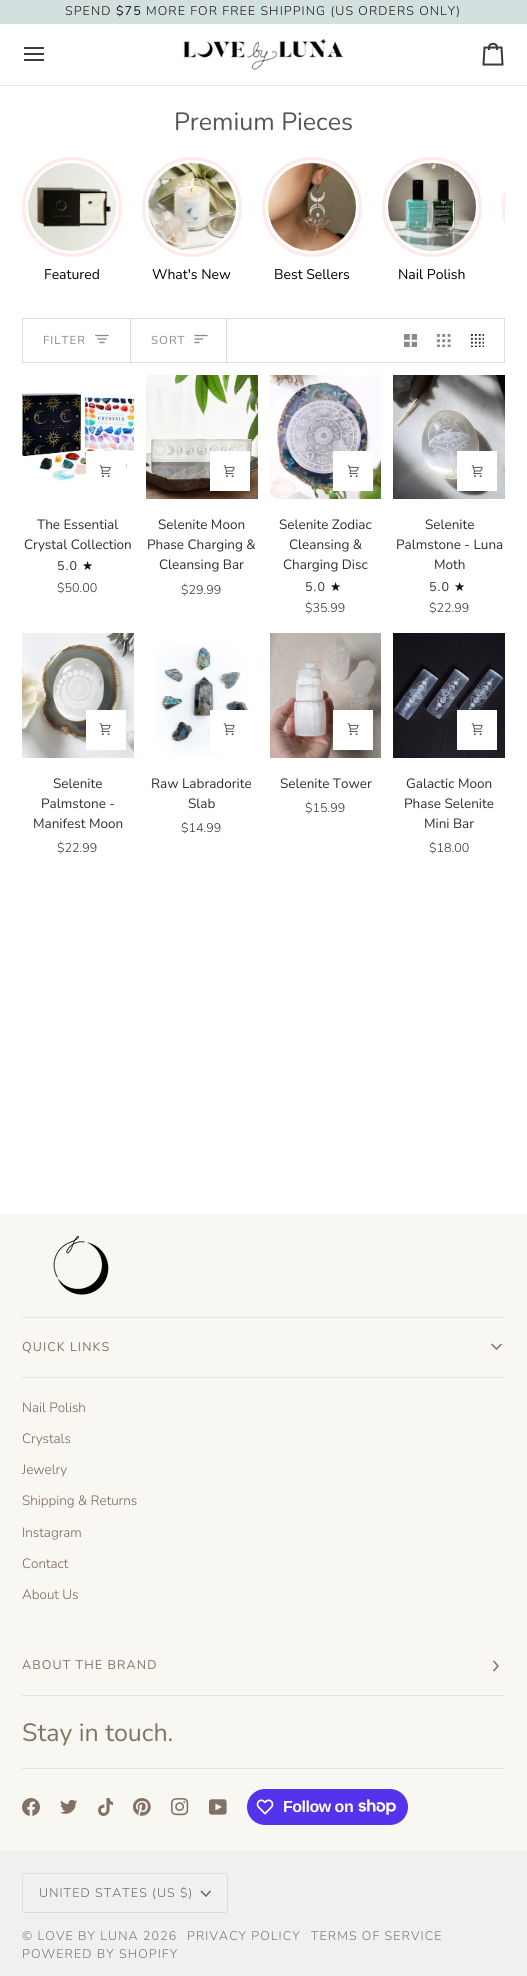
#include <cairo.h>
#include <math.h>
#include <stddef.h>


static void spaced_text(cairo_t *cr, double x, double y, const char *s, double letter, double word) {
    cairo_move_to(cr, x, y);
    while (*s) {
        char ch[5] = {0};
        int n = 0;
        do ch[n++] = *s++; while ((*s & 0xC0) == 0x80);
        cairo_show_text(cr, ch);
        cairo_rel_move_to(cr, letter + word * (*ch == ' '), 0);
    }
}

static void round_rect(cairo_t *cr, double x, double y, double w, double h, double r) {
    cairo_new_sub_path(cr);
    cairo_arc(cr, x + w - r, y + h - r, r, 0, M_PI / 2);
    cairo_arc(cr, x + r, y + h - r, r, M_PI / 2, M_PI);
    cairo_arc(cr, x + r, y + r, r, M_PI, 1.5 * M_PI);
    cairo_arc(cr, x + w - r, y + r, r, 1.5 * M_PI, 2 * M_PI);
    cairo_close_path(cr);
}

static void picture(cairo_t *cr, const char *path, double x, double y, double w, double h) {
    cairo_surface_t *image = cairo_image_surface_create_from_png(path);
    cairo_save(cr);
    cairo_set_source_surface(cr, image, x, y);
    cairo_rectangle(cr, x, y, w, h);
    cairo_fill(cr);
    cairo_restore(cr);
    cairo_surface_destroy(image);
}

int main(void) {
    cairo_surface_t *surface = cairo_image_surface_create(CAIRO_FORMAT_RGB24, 527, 1976);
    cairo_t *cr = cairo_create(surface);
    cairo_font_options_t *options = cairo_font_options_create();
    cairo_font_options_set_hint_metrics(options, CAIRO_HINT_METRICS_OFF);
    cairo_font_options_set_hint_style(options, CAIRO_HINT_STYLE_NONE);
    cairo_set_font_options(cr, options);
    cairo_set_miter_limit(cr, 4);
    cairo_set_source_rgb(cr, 1, 1, 1);
    cairo_paint(cr);
    cairo_set_source_rgb(cr, 0.824, 0.878, 0.875);
    cairo_rectangle(cr, 0, 0, 527, 24);
    cairo_fill(cr);
    cairo_select_font_face(cr, "Nunito Light", CAIRO_FONT_SLANT_NORMAL, CAIRO_FONT_WEIGHT_NORMAL);
    cairo_set_font_size(cr, 12.5);
    cairo_set_source_rgb(cr, 0.098, 0.063, 0.031);
    spaced_text(cr, 65, 15, "SPEND", 1.1, 0);
    cairo_select_font_face(cr, "Nunito", CAIRO_FONT_SLANT_NORMAL, CAIRO_FONT_WEIGHT_NORMAL);
    spaced_text(cr, 116, 15, "$75", 1.1, 0);
    cairo_select_font_face(cr, "Nunito Light", CAIRO_FONT_SLANT_NORMAL, CAIRO_FONT_WEIGHT_NORMAL);
    spaced_text(cr, 146, 15, "MORE FOR FREE SHIPPING (US ORDERS ONLY)", 1.1, 0);
    cairo_set_source_rgb(cr, 0.906, 0.906, 0.906);
    cairo_rectangle(cr, 0, 85, 527, 1);
    cairo_fill(cr);
    cairo_new_path(cr);
    cairo_move_to(cr, 43, 48);
    cairo_line_to(cr, 25, 48);
    cairo_move_to(cr, 43, 54);
    cairo_line_to(cr, 25, 54);
    cairo_move_to(cr, 43, 60);
    cairo_line_to(cr, 25, 60);
    cairo_set_source_rgb(cr, 0.231, 0.231, 0.231);
    cairo_set_line_cap(cr, CAIRO_LINE_CAP_SQUARE);
    cairo_stroke(cr);
    picture(cr, "img1.png", 183, 39, 161, 31);
    cairo_new_path(cr);
    cairo_move_to(cr, 497, 50);
    cairo_line_to(cr, 497, 47.5);
    cairo_line_to(cr, 501.5, 47.5);
    cairo_line_to(cr, 502.5, 64.5);
    cairo_line_to(cr, 483.5, 64.5);
    cairo_line_to(cr, 484.5, 47.5);
    cairo_line_to(cr, 489, 47.5);
    cairo_curve_to(cr, 489, 42.5, 497, 42.5, 497, 47.5);
    cairo_line_to(cr, 489, 47.5);
    cairo_line_to(cr, 489, 50);
    cairo_set_line_cap(cr, CAIRO_LINE_CAP_BUTT);
    cairo_stroke(cr);
    cairo_select_font_face(cr, "Nunito", CAIRO_FONT_SLANT_NORMAL, CAIRO_FONT_WEIGHT_NORMAL);
    cairo_set_font_size(cr, 25);
    cairo_set_source_rgb(cr, 0.337, 0.337, 0.337);
    cairo_move_to(cr, 174, 130);
    cairo_show_text(cr, "Premium Pieces");
    cairo_save(cr);
    cairo_rectangle(cr, 22, 157, 483, 127);
    cairo_clip(cr);
    round_rect(cr, 503.5, 158.5, 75, 97, 48.5);
    cairo_set_source_rgb(cr, 1, 0.914, 0.914);
    cairo_set_line_width(cr, 3);
    cairo_stroke(cr);
    cairo_restore(cr);
    cairo_arc(cr, 72, 207, 48.5, 0, 2 * M_PI);
    cairo_set_source_rgb(cr, 1, 0.914, 0.914);
    cairo_set_line_width(cr, 3);
    cairo_stroke(cr);
    picture(cr, "img2.png", 28, 163, 88, 88);
    cairo_set_font_size(cr, 14);
    cairo_set_source_rgb(cr, 0, 0, 0);
    cairo_move_to(cr, 44, 279);
    cairo_show_text(cr, "Featured");
    cairo_new_path(cr);
    cairo_arc(cr, 192, 207, 48.5, 0, 2 * M_PI);
    cairo_set_source_rgb(cr, 1, 0.914, 0.914);
    cairo_stroke(cr);
    picture(cr, "img3.png", 148, 163, 88, 88);
    cairo_set_source_rgb(cr, 0, 0, 0);
    cairo_move_to(cr, 152, 279);
    cairo_show_text(cr, "What's New");
    cairo_new_path(cr);
    cairo_arc(cr, 312, 207, 48.5, 0, 2 * M_PI);
    cairo_set_source_rgb(cr, 1, 0.914, 0.914);
    cairo_stroke(cr);
    picture(cr, "img4.png", 268, 163, 88, 88);
    cairo_set_source_rgb(cr, 0, 0, 0);
    cairo_move_to(cr, 274, 279);
    cairo_show_text(cr, "Best Sellers");
    cairo_new_path(cr);
    cairo_arc(cr, 432, 207, 48.5, 0, 2 * M_PI);
    cairo_set_source_rgb(cr, 1, 0.914, 0.914);
    cairo_stroke(cr);
    picture(cr, "img5.png", 388, 163, 88, 88);
    cairo_set_source_rgb(cr, 0, 0, 0);
    cairo_move_to(cr, 398, 279);
    cairo_show_text(cr, "Nail Polish");
    cairo_rectangle(cr, 22.5, 318.5, 482, 44);
    cairo_set_source_rgb(cr, 0.867, 0.867, 0.867);
    cairo_set_line_width(cr, 1);
    cairo_stroke(cr);
    cairo_rectangle(cr, 130, 319, 1, 43);
    cairo_fill(cr);
    cairo_set_font_size(cr, 11.5);
    cairo_set_source_rgb(cr, 0.537, 0.537, 0.537);
    spaced_text(cr, 43, 344, "FILTER", 1, 0);
    cairo_new_path(cr);
    cairo_move_to(cr, 108, 335.5);
    cairo_line_to(cr, 96, 335.5);
    cairo_move_to(cr, 106, 339);
    cairo_line_to(cr, 98, 339);
    cairo_move_to(cr, 104, 342.5);
    cairo_line_to(cr, 100, 342.5);
    cairo_set_line_width(cr, 1.3);
    cairo_set_line_cap(cr, CAIRO_LINE_CAP_SQUARE);
    cairo_stroke(cr);
    cairo_set_source_rgb(cr, 0.867, 0.867, 0.867);
    cairo_rectangle(cr, 226, 319, 1, 43);
    cairo_fill(cr);
    cairo_set_source_rgb(cr, 0.537, 0.537, 0.537);
    spaced_text(cr, 151, 344, "SORT", 1, 0);
    cairo_new_path(cr);
    cairo_move_to(cr, 207, 335.5);
    cairo_line_to(cr, 195, 335.5);
    cairo_move_to(cr, 202.5, 339);
    cairo_line_to(cr, 195, 339);
    cairo_move_to(cr, 199, 342.5);
    cairo_line_to(cr, 195, 342.5);
    cairo_stroke(cr);
    picture(cr, "img6.png", 404, 334, 13, 13);
    picture(cr, "img7.png", 437, 334, 14, 13);
    picture(cr, "img8.png", 471, 334, 13, 13);
    picture(cr, "img9.png", 22, 393, 112, 89);
    cairo_set_source_rgb(cr, 1, 1, 1);
    cairo_rectangle(cr, 86, 451, 40, 31);
    cairo_fill(cr);
    picture(cr, "img10.png", 99, 465, 12, 12);
    cairo_set_font_size(cr, 13.5);
    cairo_set_source_rgb(cr, 0.208, 0.169, 0.169);
    cairo_move_to(cr, 37, 529);
    cairo_show_text(cr, "The Essential");
    cairo_move_to(cr, 24, 549);
    cairo_show_text(cr, "Crystal Collection");
    cairo_set_font_size(cr, 12.5);
    spaced_text(cr, 57, 570, "5.0", 1.1, 0);
    cairo_select_font_face(cr, "DejaVu Sans", CAIRO_FONT_SLANT_NORMAL, CAIRO_FONT_WEIGHT_NORMAL);
    cairo_set_source_rgb(cr, 0.071, 0.051, 0.039);
    spaced_text(cr, 82, 570, "★", 1.1, 0);
    cairo_select_font_face(cr, "Nunito Light", CAIRO_FONT_SLANT_NORMAL, CAIRO_FONT_WEIGHT_NORMAL);
    cairo_set_source_rgb(cr, 0.208, 0.169, 0.169);
    cairo_move_to(cr, 57, 592);
    cairo_show_text(cr, "$50.00");
    picture(cr, "img11.png", 146, 375, 112, 124);
    cairo_set_source_rgb(cr, 1, 1, 1);
    cairo_rectangle(cr, 210, 451, 40, 40);
    cairo_fill(cr);
    picture(cr, "img10.png", 223, 465, 12, 12);
    cairo_select_font_face(cr, "Nunito", CAIRO_FONT_SLANT_NORMAL, CAIRO_FONT_WEIGHT_NORMAL);
    cairo_set_font_size(cr, 13.5);
    cairo_set_source_rgb(cr, 0.208, 0.169, 0.169);
    cairo_move_to(cr, 158, 529);
    cairo_show_text(cr, "Selenite Moon");
    cairo_move_to(cr, 147, 549);
    cairo_show_text(cr, "Phase Charging &");
    cairo_move_to(cr, 159, 569);
    cairo_show_text(cr, "Cleansing Bar");
    cairo_select_font_face(cr, "Nunito Light", CAIRO_FONT_SLANT_NORMAL, CAIRO_FONT_WEIGHT_NORMAL);
    cairo_set_font_size(cr, 12.5);
    cairo_move_to(cr, 181, 594);
    cairo_show_text(cr, "$29.99");
    picture(cr, "img12.png", 270, 375, 111, 124);
    cairo_set_source_rgb(cr, 1, 1, 1);
    cairo_rectangle(cr, 333, 451, 40, 40);
    cairo_fill(cr);
    picture(cr, "img10.png", 347, 465, 12, 12);
    cairo_select_font_face(cr, "Nunito", CAIRO_FONT_SLANT_NORMAL, CAIRO_FONT_WEIGHT_NORMAL);
    cairo_set_font_size(cr, 13.5);
    cairo_set_source_rgb(cr, 0.208, 0.169, 0.169);
    cairo_move_to(cr, 279, 529);
    cairo_show_text(cr, "Selenite Zodiac");
    cairo_move_to(cr, 289, 549);
    cairo_show_text(cr, "Cleansing &");
    cairo_move_to(cr, 283, 569);
    cairo_show_text(cr, "Charging Disc");
    cairo_set_font_size(cr, 12.5);
    spaced_text(cr, 305, 591, "5.0", 1.1, 0);
    cairo_select_font_face(cr, "DejaVu Sans", CAIRO_FONT_SLANT_NORMAL, CAIRO_FONT_WEIGHT_NORMAL);
    cairo_set_source_rgb(cr, 0.071, 0.051, 0.039);
    spaced_text(cr, 330, 591, "★", 1.1, 0);
    cairo_select_font_face(cr, "Nunito Light", CAIRO_FONT_SLANT_NORMAL, CAIRO_FONT_WEIGHT_NORMAL);
    cairo_set_source_rgb(cr, 0.208, 0.169, 0.169);
    cairo_move_to(cr, 305, 612);
    cairo_show_text(cr, "$35.99");
    picture(cr, "img13.png", 393, 375, 112, 124);
    cairo_set_source_rgb(cr, 1, 1, 1);
    cairo_rectangle(cr, 457, 451, 40, 40);
    cairo_fill(cr);
    picture(cr, "img10.png", 471, 465, 12, 12);
    cairo_select_font_face(cr, "Nunito", CAIRO_FONT_SLANT_NORMAL, CAIRO_FONT_WEIGHT_NORMAL);
    cairo_set_font_size(cr, 13.5);
    cairo_set_source_rgb(cr, 0.208, 0.169, 0.169);
    cairo_move_to(cr, 425, 529);
    cairo_show_text(cr, "Selenite");
    cairo_move_to(cr, 396, 549);
    cairo_show_text(cr, "Palmstone - Luna");
    cairo_move_to(cr, 434, 569);
    cairo_show_text(cr, "Moth");
    cairo_set_font_size(cr, 12.5);
    spaced_text(cr, 429, 591, "5.0", 1.1, 0);
    cairo_select_font_face(cr, "DejaVu Sans", CAIRO_FONT_SLANT_NORMAL, CAIRO_FONT_WEIGHT_NORMAL);
    cairo_set_source_rgb(cr, 0.071, 0.051, 0.039);
    spaced_text(cr, 454, 591, "★", 1.1, 0);
    cairo_select_font_face(cr, "Nunito Light", CAIRO_FONT_SLANT_NORMAL, CAIRO_FONT_WEIGHT_NORMAL);
    cairo_set_source_rgb(cr, 0.208, 0.169, 0.169);
    cairo_move_to(cr, 429, 612);
    cairo_show_text(cr, "$22.99");
    picture(cr, "img14.png", 22, 633, 112, 125);
    cairo_set_source_rgb(cr, 1, 1, 1);
    cairo_rectangle(cr, 86, 710, 40, 40);
    cairo_fill(cr);
    picture(cr, "img15.png", 99, 723, 12, 13);
    cairo_select_font_face(cr, "Nunito", CAIRO_FONT_SLANT_NORMAL, CAIRO_FONT_WEIGHT_NORMAL);
    cairo_set_font_size(cr, 13.5);
    cairo_set_source_rgb(cr, 0.208, 0.169, 0.169);
    cairo_move_to(cr, 53, 788);
    cairo_show_text(cr, "Selenite");
    cairo_move_to(cr, 41, 808);
    cairo_show_text(cr, "Palmstone -");
    cairo_move_to(cr, 33, 828);
    cairo_show_text(cr, "Manifest Moon");
    cairo_select_font_face(cr, "Nunito Light", CAIRO_FONT_SLANT_NORMAL, CAIRO_FONT_WEIGHT_NORMAL);
    cairo_set_font_size(cr, 12.5);
    cairo_move_to(cr, 57, 852);
    cairo_show_text(cr, "$22.99");
    picture(cr, "img16.png", 155, 642, 94, 114);
    cairo_set_source_rgb(cr, 1, 1, 1);
    cairo_rectangle(cr, 210, 710, 39, 40);
    cairo_fill(cr);
    picture(cr, "img15.png", 223, 723, 12, 13);
    cairo_select_font_face(cr, "Nunito", CAIRO_FONT_SLANT_NORMAL, CAIRO_FONT_WEIGHT_NORMAL);
    cairo_set_font_size(cr, 13.5);
    cairo_set_source_rgb(cr, 0.208, 0.169, 0.169);
    cairo_move_to(cr, 151, 788);
    cairo_show_text(cr, "Raw Labradorite");
    cairo_move_to(cr, 188, 808);
    cairo_show_text(cr, "Slab");
    cairo_select_font_face(cr, "Nunito Light", CAIRO_FONT_SLANT_NORMAL, CAIRO_FONT_WEIGHT_NORMAL);
    cairo_set_font_size(cr, 12.5);
    cairo_move_to(cr, 181, 832);
    cairo_show_text(cr, "$14.99");
    picture(cr, "img17.png", 270, 633, 111, 125);
    cairo_set_source_rgb(cr, 1, 1, 1);
    cairo_rectangle(cr, 333, 710, 40, 40);
    cairo_fill(cr);
    picture(cr, "img15.png", 347, 723, 12, 13);
    cairo_select_font_face(cr, "Nunito", CAIRO_FONT_SLANT_NORMAL, CAIRO_FONT_WEIGHT_NORMAL);
    cairo_set_font_size(cr, 13.5);
    cairo_set_source_rgb(cr, 0.208, 0.169, 0.169);
    cairo_move_to(cr, 280, 788);
    cairo_show_text(cr, "Selenite Tower");
    cairo_select_font_face(cr, "Nunito Light", CAIRO_FONT_SLANT_NORMAL, CAIRO_FONT_WEIGHT_NORMAL);
    cairo_set_font_size(cr, 12.5);
    cairo_move_to(cr, 305, 812);
    cairo_show_text(cr, "$15.99");
    picture(cr, "img18.png", 393, 633, 112, 125);
    cairo_set_source_rgb(cr, 1, 1, 1);
    cairo_rectangle(cr, 457, 710, 40, 40);
    cairo_fill(cr);
    picture(cr, "img15.png", 471, 723, 12, 13);
    cairo_select_font_face(cr, "Nunito", CAIRO_FONT_SLANT_NORMAL, CAIRO_FONT_WEIGHT_NORMAL);
    cairo_set_font_size(cr, 13.5);
    cairo_set_source_rgb(cr, 0.208, 0.169, 0.169);
    cairo_move_to(cr, 406, 788);
    cairo_show_text(cr, "Galactic Moon");
    cairo_move_to(cr, 404, 808);
    cairo_show_text(cr, "Phase Selenite");
    cairo_move_to(cr, 424, 828);
    cairo_show_text(cr, "Mini Bar");
    cairo_select_font_face(cr, "Nunito Light", CAIRO_FONT_SLANT_NORMAL, CAIRO_FONT_WEIGHT_NORMAL);
    cairo_set_font_size(cr, 12.5);
    cairo_move_to(cr, 429, 852);
    cairo_show_text(cr, "$18.00");
    cairo_set_source_rgb(cr, 0.976, 0.965, 0.949);
    cairo_rectangle(cr, 0, 1214, 527, 637);
    cairo_fill(cr);
    picture(cr, "img19.png", 53, 1235, 56, 60);
    cairo_set_source_rgb(cr, 0.898, 0.878, 0.859);
    cairo_rectangle(cr, 22, 1317, 483, 1);
    cairo_fill(cr);
    cairo_rectangle(cr, 22, 1377, 483, 1);
    cairo_fill(cr);
    cairo_select_font_face(cr, "Nunito", CAIRO_FONT_SLANT_NORMAL, CAIRO_FONT_WEIGHT_NORMAL);
    cairo_set_source_rgb(cr, 0.514, 0.451, 0.4);
    spaced_text(cr, 22, 1351, "QUICK LINKS", 1.1, 0);
    cairo_new_path(cr);
    cairo_move_to(cr, 492, 1344.5);
    cairo_line_to(cr, 496.5, 1349);
    cairo_line_to(cr, 501, 1344.5);
    cairo_set_line_width(cr, 1.5);
    cairo_stroke(cr);
    cairo_select_font_face(cr, "Nunito Light", CAIRO_FONT_SLANT_NORMAL, CAIRO_FONT_WEIGHT_NORMAL);
    cairo_set_font_size(cr, 13.5);
    cairo_set_source_rgb(cr, 0.463, 0.392, 0.337);
    cairo_move_to(cr, 22, 1412);
    cairo_show_text(cr, "Nail Polish");
    cairo_move_to(cr, 22, 1443);
    cairo_show_text(cr, "Crystals");
    cairo_move_to(cr, 22, 1474);
    cairo_show_text(cr, "Jewelry");
    cairo_move_to(cr, 22, 1505);
    cairo_show_text(cr, "Shipping & Returns");
    cairo_move_to(cr, 22, 1537);
    cairo_show_text(cr, "Instagram");
    cairo_move_to(cr, 22, 1568);
    cairo_show_text(cr, "Contact");
    cairo_move_to(cr, 22, 1599);
    cairo_show_text(cr, "About Us");
    cairo_set_source_rgb(cr, 0.898, 0.878, 0.859);
    cairo_rectangle(cr, 22, 1695, 483, 1);
    cairo_fill(cr);
    cairo_select_font_face(cr, "Nunito", CAIRO_FONT_SLANT_NORMAL, CAIRO_FONT_WEIGHT_NORMAL);
    cairo_set_font_size(cr, 12.5);
    cairo_set_source_rgb(cr, 0.514, 0.451, 0.4);
    spaced_text(cr, 22, 1669, "ABOUT THE BRAND", 1.1, 0);
    cairo_new_path(cr);
    cairo_move_to(cr, 494, 1670.5);
    cairo_line_to(cr, 498, 1666);
    cairo_line_to(cr, 494, 1661.5);
    cairo_stroke(cr);
    cairo_set_font_size(cr, 25);
    cairo_move_to(cr, 22, 1741);
    cairo_show_text(cr, "Stay in touch.");
    cairo_set_source_rgb(cr, 0.898, 0.878, 0.859);
    cairo_rectangle(cr, 22, 1768, 483, 1);
    cairo_fill(cr);
    picture(cr, "img20.png", 22, 1798, 18, 18);
    picture(cr, "img21.png", 60, 1799, 18, 15);
    picture(cr, "img22.png", 98, 1798, 15, 18);
    picture(cr, "img23.png", 133, 1798, 18, 18);
    picture(cr, "img24.png", 171, 1798, 18, 18);
    picture(cr, "img25.png", 209, 1799, 18, 16);
    cairo_set_source_rgb(cr, 0.329, 0.2, 0.922);
    round_rect(cr, 247, 1789, 161, 36, 18);
    cairo_fill(cr);
    picture(cr, "img26.png", 256, 1799, 18, 16);
    cairo_select_font_face(cr, "Liberation Sans", CAIRO_FONT_SLANT_NORMAL, CAIRO_FONT_WEIGHT_BOLD);
    cairo_set_font_size(cr, 16);
    cairo_set_source_rgb(cr, 1, 1, 1);
    spaced_text(cr, 283, 1812, "Follow on", -0.5, 0);
    picture(cr, "img27.png", 358, 1799, 38, 16);
    cairo_set_source_rgb(cr, 0.941, 0.941, 0.941);
    cairo_rectangle(cr, 0, 1851, 527, 125);
    cairo_fill(cr);
    round_rect(cr, 22.5, 1873.5, 205, 39, 2.5);
    cairo_set_source_rgb(cr, 0.859, 0.859, 0.859);
    cairo_set_line_width(cr, 1);
    cairo_set_line_cap(cr, CAIRO_LINE_CAP_BUTT);
    cairo_stroke(cr);
    cairo_select_font_face(cr, "Nunito Light", CAIRO_FONT_SLANT_NORMAL, CAIRO_FONT_WEIGHT_NORMAL);
    cairo_set_font_size(cr, 12.5);
    cairo_set_source_rgb(cr, 0.396, 0.396, 0.396);
    spaced_text(cr, 39, 1897, "UNITED STATES (US $)", 1.1, 0);
    cairo_new_path(cr);
    cairo_move_to(cr, 201.5, 1891.5);
    cairo_line_to(cr, 206, 1896);
    cairo_line_to(cr, 210, 1891.5);
    cairo_set_line_width(cr, 1.5);
    cairo_set_line_cap(cr, CAIRO_LINE_CAP_SQUARE);
    cairo_stroke(cr);
    cairo_set_source_rgb(cr, 0.451, 0.451, 0.451);
    spaced_text(cr, 22, 1940, "© LOVE BY LUNA", 1.1, 0);
    spaced_text(cr, 143, 1940, "2026", 1.1, 0);
    spaced_text(cr, 187, 1940, "PRIVACY POLICY", 1.1, 0);
    spaced_text(cr, 311, 1940, "TERMS OF SERVICE", 1.1, 0);
    spaced_text(cr, 22, 1958, "POWERED BY SHOPIFY", 1.1, 0);
    cairo_surface_write_to_png(surface, "page.png");
    cairo_font_options_destroy(options);
    cairo_destroy(cr);
    cairo_surface_destroy(surface);
    return 0;
}
